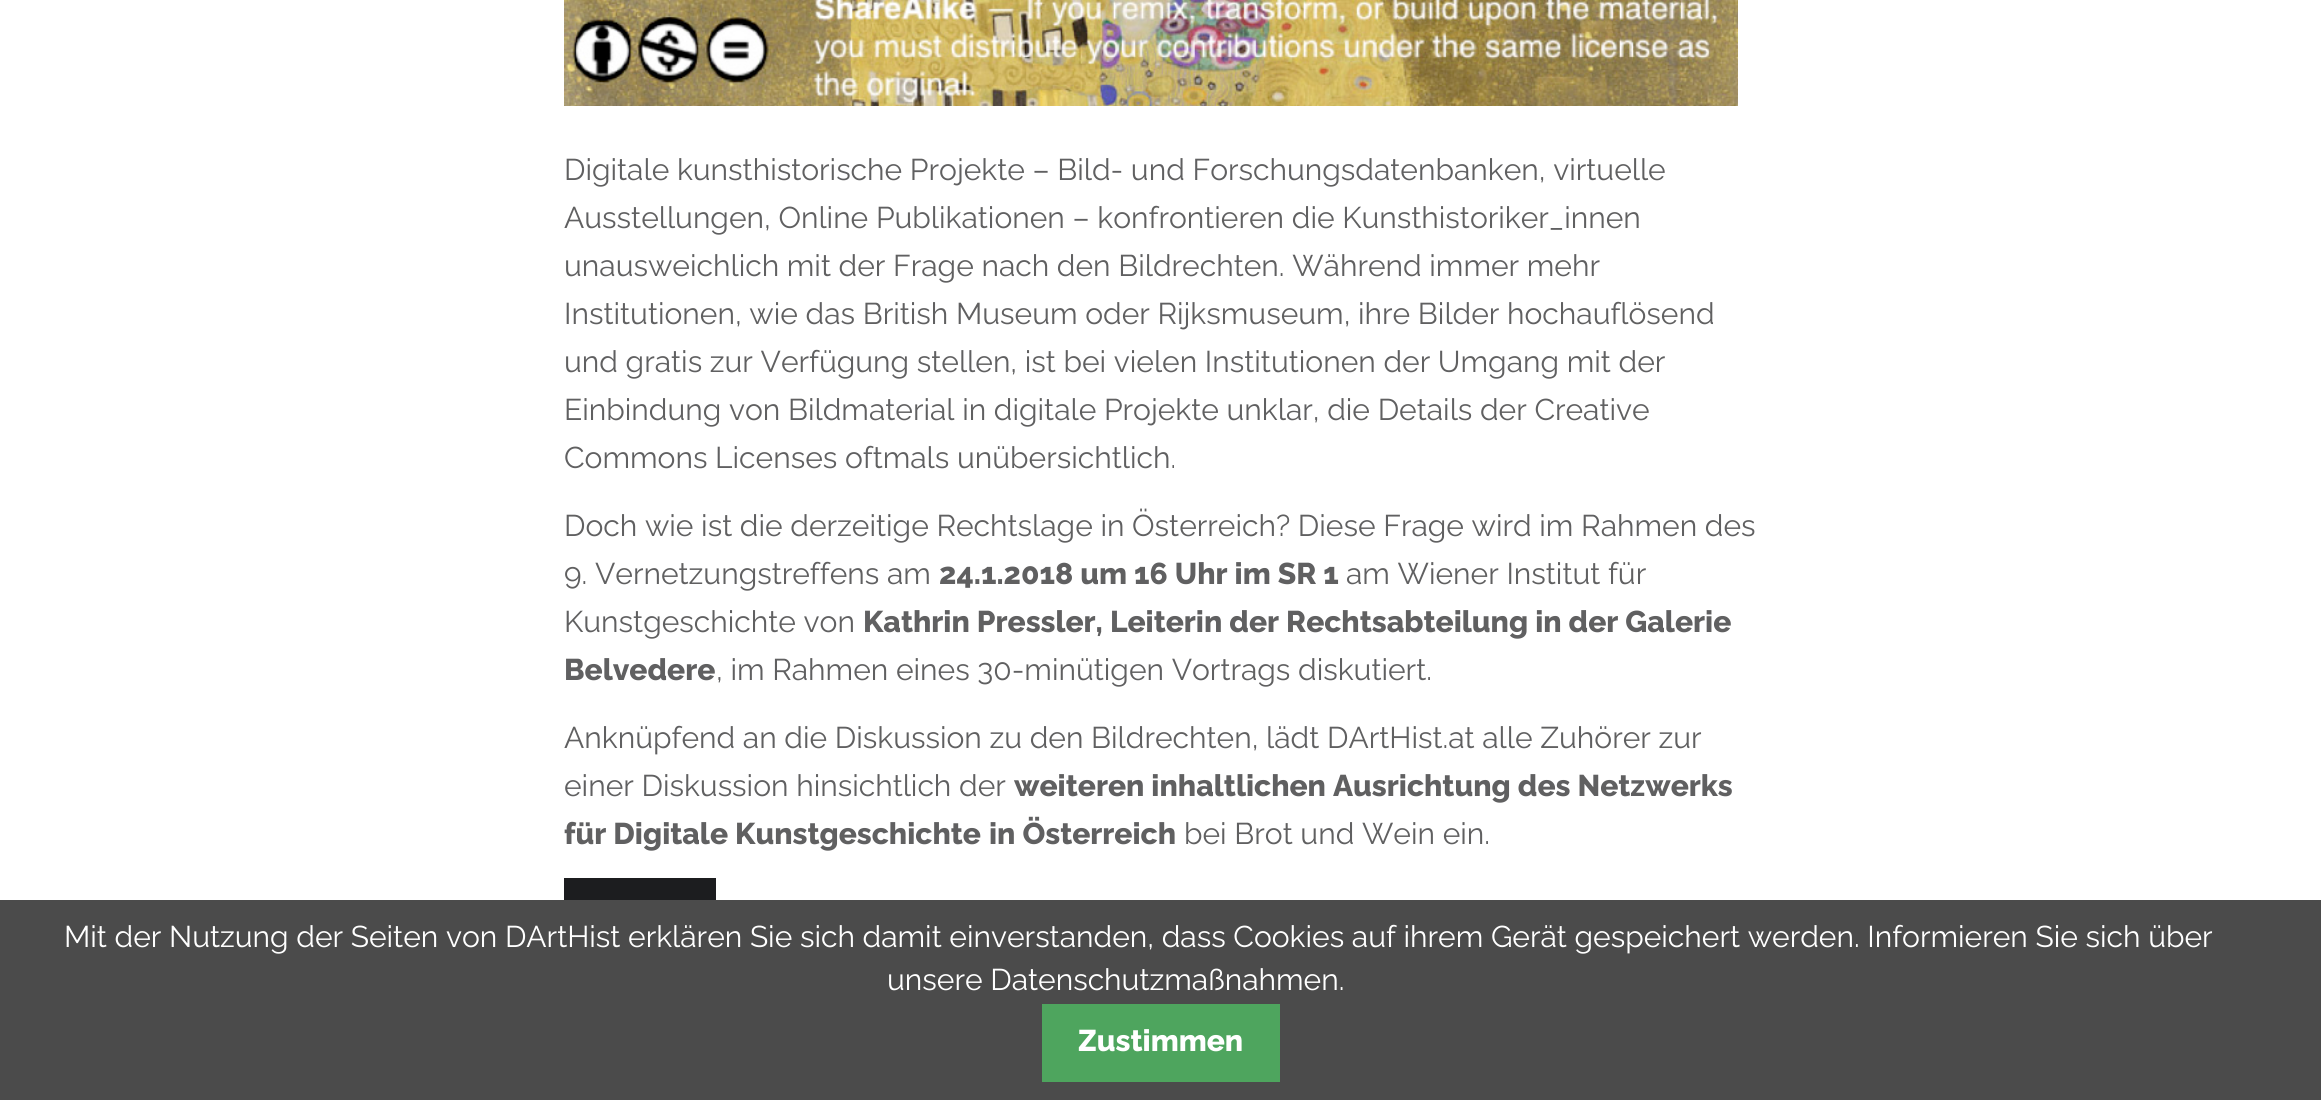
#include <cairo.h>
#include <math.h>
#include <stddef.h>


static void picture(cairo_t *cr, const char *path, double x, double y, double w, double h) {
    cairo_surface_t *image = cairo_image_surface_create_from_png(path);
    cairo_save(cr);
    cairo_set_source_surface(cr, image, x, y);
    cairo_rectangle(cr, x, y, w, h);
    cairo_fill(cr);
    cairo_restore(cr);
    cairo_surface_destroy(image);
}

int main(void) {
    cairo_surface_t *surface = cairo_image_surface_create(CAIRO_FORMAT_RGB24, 2321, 1100);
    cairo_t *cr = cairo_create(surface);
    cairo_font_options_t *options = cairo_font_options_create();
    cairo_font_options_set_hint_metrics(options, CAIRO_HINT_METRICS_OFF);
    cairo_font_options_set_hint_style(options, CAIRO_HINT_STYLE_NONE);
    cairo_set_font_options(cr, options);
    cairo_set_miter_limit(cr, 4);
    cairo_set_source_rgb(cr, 1, 1, 1);
    cairo_paint(cr);
    picture(cr, "img1.png", 564, 0, 1174, 106);
    cairo_select_font_face(cr, "Raleway", CAIRO_FONT_SLANT_NORMAL, CAIRO_FONT_WEIGHT_NORMAL);
    cairo_set_font_size(cr, 30);
    cairo_set_source_rgb(cr, 0.376, 0.376, 0.38);
    cairo_move_to(cr, 564, 180);
    cairo_show_text(cr, "Digitale kunsthistorische Projekte – Bild- und Forschungsdatenbanken, virtuelle");
    cairo_move_to(cr, 564, 228);
    cairo_show_text(cr, "Ausstellungen, Online Publikationen – konfrontieren die Kunsthistoriker_innen");
    cairo_move_to(cr, 564, 276);
    cairo_show_text(cr, "unausweichlich mit der Frage nach den Bildrechten. Während immer mehr");
    cairo_move_to(cr, 564, 324);
    cairo_show_text(cr, "Institutionen, wie das British Museum oder Rijksmuseum, ihre Bilder hochauflösend");
    cairo_move_to(cr, 564, 372);
    cairo_show_text(cr, "und gratis zur Verfügung stellen, ist bei vielen Institutionen der Umgang mit der");
    cairo_move_to(cr, 564, 420);
    cairo_show_text(cr, "Einbindung von Bildmaterial in digitale Projekte unklar, die Details der Creative");
    cairo_move_to(cr, 564, 468);
    cairo_show_text(cr, "Commons Licenses oftmals unübersichtlich.");
    cairo_move_to(cr, 564, 536);
    cairo_show_text(cr, "Doch wie ist die derzeitige Rechtslage in Österreich? Diese Frage wird im Rahmen des");
    cairo_move_to(cr, 564, 584);
    cairo_show_text(cr, "9. Vernetzungstreffens am");
    cairo_select_font_face(cr, "Raleway ExtraBold", CAIRO_FONT_SLANT_NORMAL, CAIRO_FONT_WEIGHT_NORMAL);
    cairo_move_to(cr, 939, 584);
    cairo_show_text(cr, "24.1.2018 um 16 Uhr im SR 1");
    cairo_select_font_face(cr, "Raleway", CAIRO_FONT_SLANT_NORMAL, CAIRO_FONT_WEIGHT_NORMAL);
    cairo_move_to(cr, 1346, 584);
    cairo_show_text(cr, "am Wiener Institut für");
    cairo_move_to(cr, 564, 632);
    cairo_show_text(cr, "Kunstgeschichte von");
    cairo_select_font_face(cr, "Raleway ExtraBold", CAIRO_FONT_SLANT_NORMAL, CAIRO_FONT_WEIGHT_NORMAL);
    cairo_move_to(cr, 863, 632);
    cairo_show_text(cr, "Kathrin Pressler, Leiterin der Rechtsabteilung in der Galerie");
    cairo_move_to(cr, 564, 680);
    cairo_show_text(cr, "Belvedere");
    cairo_select_font_face(cr, "Raleway", CAIRO_FONT_SLANT_NORMAL, CAIRO_FONT_WEIGHT_NORMAL);
    cairo_move_to(cr, 716, 680);
    cairo_show_text(cr, ", im Rahmen eines 30-minütigen Vortrags diskutiert.");
    cairo_move_to(cr, 564, 748);
    cairo_show_text(cr, "Anknüpfend an die Diskussion zu den Bildrechten, lädt DArtHist.at alle Zuhörer zur");
    cairo_move_to(cr, 564, 796);
    cairo_show_text(cr, "einer Diskussion hinsichtlich der");
    cairo_select_font_face(cr, "Raleway ExtraBold", CAIRO_FONT_SLANT_NORMAL, CAIRO_FONT_WEIGHT_NORMAL);
    cairo_move_to(cr, 1014, 796);
    cairo_show_text(cr, "weiteren inhaltlichen Ausrichtung des Netzwerks");
    cairo_move_to(cr, 564, 844);
    cairo_show_text(cr, "für Digitale Kunstgeschichte");
    cairo_move_to(cr, 989, 844);
    cairo_show_text(cr, "in Österreich");
    cairo_select_font_face(cr, "Raleway", CAIRO_FONT_SLANT_NORMAL, CAIRO_FONT_WEIGHT_NORMAL);
    cairo_move_to(cr, 1184, 844);
    cairo_show_text(cr, "bei Brot und Wein ein.");
    cairo_set_source_rgb(cr, 0.11, 0.114, 0.122);
    cairo_rectangle(cr, 564, 878, 152, 22);
    cairo_fill(cr);
    cairo_set_source_rgb(cr, 0.294, 0.294, 0.294);
    cairo_rectangle(cr, 0, 900, 2321, 200);
    cairo_fill(cr);
    cairo_set_source_rgb(cr, 1, 1, 1);
    cairo_move_to(cr, 64, 947);
    cairo_show_text(cr, "Mit der Nutzung der Seiten von DArtHist erklären Sie sich damit einverstanden, dass Cookies auf ihrem Gerät gespeichert werden. Informieren Sie sich über");
    cairo_move_to(cr, 887, 990);
    cairo_show_text(cr, "unsere Datenschutzmaßnahmen.");
    cairo_set_source_rgb(cr, 0.306, 0.647, 0.369);
    cairo_rectangle(cr, 1042, 1004, 238, 78);
    cairo_fill(cr);
    cairo_select_font_face(cr, "Raleway ExtraBold", CAIRO_FONT_SLANT_NORMAL, CAIRO_FONT_WEIGHT_NORMAL);
    cairo_set_source_rgb(cr, 1, 1, 1);
    cairo_move_to(cr, 1078, 1051);
    cairo_show_text(cr, "Zustimmen");
    cairo_surface_write_to_png(surface, "page.png");
    cairo_font_options_destroy(options);
    cairo_destroy(cr);
    cairo_surface_destroy(surface);
    return 0;
}
